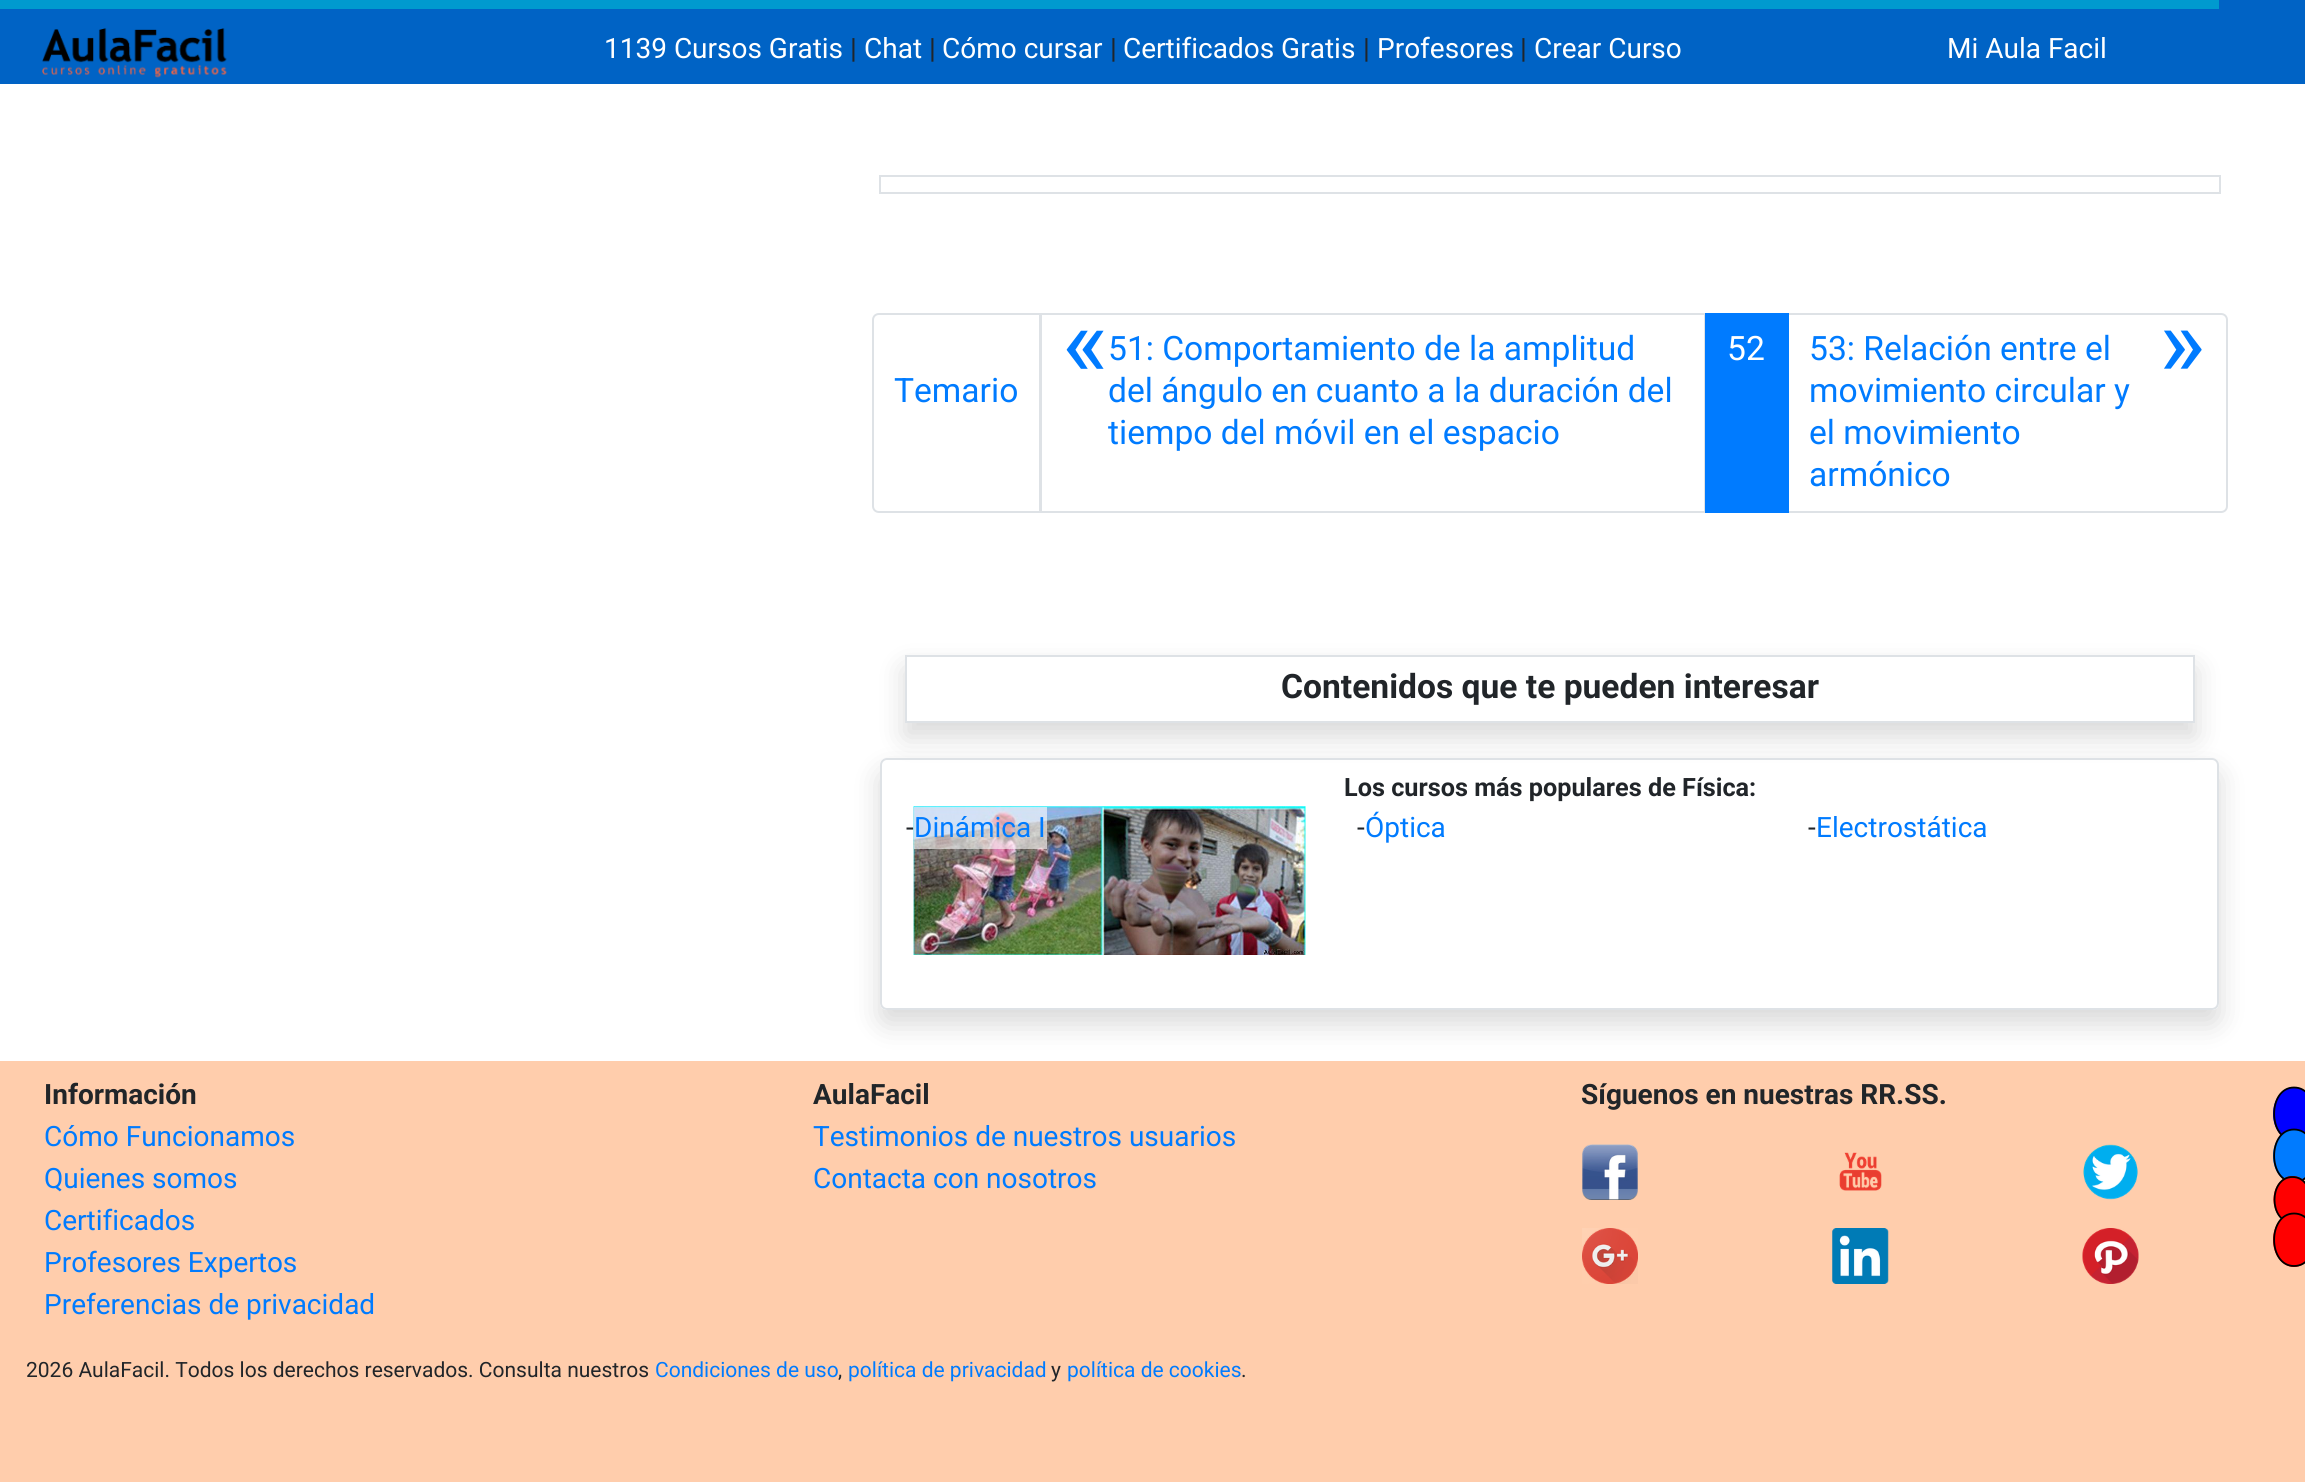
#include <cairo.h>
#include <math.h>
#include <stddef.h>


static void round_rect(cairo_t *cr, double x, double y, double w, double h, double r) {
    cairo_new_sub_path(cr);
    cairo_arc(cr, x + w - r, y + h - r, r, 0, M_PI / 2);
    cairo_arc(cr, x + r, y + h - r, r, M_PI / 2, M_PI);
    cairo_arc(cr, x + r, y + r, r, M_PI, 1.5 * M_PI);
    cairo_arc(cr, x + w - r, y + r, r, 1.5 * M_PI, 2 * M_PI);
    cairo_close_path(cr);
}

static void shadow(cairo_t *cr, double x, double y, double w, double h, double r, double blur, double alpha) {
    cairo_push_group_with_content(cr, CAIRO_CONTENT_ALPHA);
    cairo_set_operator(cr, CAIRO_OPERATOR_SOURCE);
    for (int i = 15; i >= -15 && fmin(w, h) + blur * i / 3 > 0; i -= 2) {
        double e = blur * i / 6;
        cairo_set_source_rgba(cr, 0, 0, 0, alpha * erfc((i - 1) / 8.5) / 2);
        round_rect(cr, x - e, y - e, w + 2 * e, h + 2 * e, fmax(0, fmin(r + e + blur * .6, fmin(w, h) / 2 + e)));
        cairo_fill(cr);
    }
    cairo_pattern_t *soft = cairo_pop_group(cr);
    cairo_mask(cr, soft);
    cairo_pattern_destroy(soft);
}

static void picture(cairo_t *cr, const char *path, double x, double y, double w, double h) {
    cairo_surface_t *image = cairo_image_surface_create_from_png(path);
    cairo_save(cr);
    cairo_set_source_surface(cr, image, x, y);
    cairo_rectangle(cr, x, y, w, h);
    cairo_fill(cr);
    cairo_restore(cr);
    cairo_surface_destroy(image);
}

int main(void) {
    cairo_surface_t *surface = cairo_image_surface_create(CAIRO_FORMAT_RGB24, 2305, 1482);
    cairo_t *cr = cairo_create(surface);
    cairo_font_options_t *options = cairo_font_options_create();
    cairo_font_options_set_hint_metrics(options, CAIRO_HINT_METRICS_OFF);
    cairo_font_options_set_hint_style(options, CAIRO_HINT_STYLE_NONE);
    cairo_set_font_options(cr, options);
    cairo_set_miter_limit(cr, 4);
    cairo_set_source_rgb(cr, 1, 1, 1);
    cairo_paint(cr);
    cairo_set_source_rgb(cr, 0, 0.388, 0.773);
    cairo_rectangle(cr, 0, 0, 2305, 84);
    cairo_fill(cr);
    cairo_set_source_rgb(cr, 0, 0.604, 0.812);
    cairo_rectangle(cr, 0, 0, 2219, 9);
    cairo_fill(cr);
    picture(cr, "img1.png", 42, 28, 185, 50);
    cairo_select_font_face(cr, "Roboto", CAIRO_FONT_SLANT_NORMAL, CAIRO_FONT_WEIGHT_NORMAL);
    cairo_set_font_size(cr, 28);
    cairo_set_source_rgb(cr, 1, 1, 1);
    cairo_move_to(cr, 604, 58);
    cairo_show_text(cr, "1139 Cursos Gratis");
    cairo_set_source_rgb(cr, 0.129, 0.145, 0.161);
    cairo_move_to(cr, 850, 58);
    cairo_show_text(cr, "|");
    cairo_set_source_rgb(cr, 1, 1, 1);
    cairo_move_to(cr, 864, 58);
    cairo_show_text(cr, "Chat");
    cairo_set_source_rgb(cr, 0.129, 0.145, 0.161);
    cairo_move_to(cr, 929, 58);
    cairo_show_text(cr, "|");
    cairo_set_source_rgb(cr, 1, 1, 1);
    cairo_move_to(cr, 942, 58);
    cairo_show_text(cr, "Cómo cursar");
    cairo_set_source_rgb(cr, 0.129, 0.145, 0.161);
    cairo_move_to(cr, 1110, 58);
    cairo_show_text(cr, "|");
    cairo_set_source_rgb(cr, 1, 1, 1);
    cairo_move_to(cr, 1123, 58);
    cairo_show_text(cr, "Certificados Gratis");
    cairo_set_source_rgb(cr, 0.129, 0.145, 0.161);
    cairo_move_to(cr, 1363, 58);
    cairo_show_text(cr, "|");
    cairo_set_source_rgb(cr, 1, 1, 1);
    cairo_move_to(cr, 1377, 58);
    cairo_show_text(cr, "Profesores");
    cairo_set_source_rgb(cr, 0.129, 0.145, 0.161);
    cairo_move_to(cr, 1520, 58);
    cairo_show_text(cr, "|");
    cairo_set_source_rgb(cr, 1, 1, 1);
    cairo_move_to(cr, 1534, 58);
    cairo_show_text(cr, "Crear Curso");
    cairo_move_to(cr, 1947, 58);
    cairo_show_text(cr, "Mi Aula Facil");
    cairo_rectangle(cr, 880, 176, 1340, 17);
    cairo_set_source_rgb(cr, 0.871, 0.886, 0.902);
    cairo_stroke(cr);
    cairo_new_path(cr);
    cairo_move_to(cr, 879, 314);
    cairo_line_to(cr, 1040, 314);
    cairo_line_to(cr, 1040, 512);
    cairo_line_to(cr, 879, 512);
    cairo_curve_to(cr, 875.5, 512, 873, 509.5, 873, 506);
    cairo_line_to(cr, 873, 320);
    cairo_curve_to(cr, 873, 316.5, 875.5, 314, 879, 314);
    cairo_close_path(cr);
    cairo_stroke(cr);
    cairo_rectangle(cr, 1041, 314, 664, 198);
    cairo_stroke(cr);
    cairo_set_font_size(cr, 98);
    cairo_set_source_rgb(cr, 0, 0.482, 1);
    cairo_move_to(cr, 1062, 376);
    cairo_show_text(cr, "«");
    cairo_set_font_size(cr, 33.6);
    cairo_move_to(cr, 1108, 360);
    cairo_show_text(cr, "51: Comportamiento de la amplitud");
    cairo_move_to(cr, 1108, 402);
    cairo_show_text(cr, "del ángulo en cuanto a la duración del");
    cairo_move_to(cr, 1108, 444);
    cairo_show_text(cr, "tiempo del móvil en el espacio");
    cairo_new_path(cr);
    cairo_move_to(cr, 1788, 314);
    cairo_line_to(cr, 2221, 314);
    cairo_curve_to(cr, 2224.5, 314, 2227, 316.5, 2227, 320);
    cairo_line_to(cr, 2227, 506);
    cairo_curve_to(cr, 2227, 509.5, 2224.5, 512, 2221, 512);
    cairo_line_to(cr, 1788, 512);
    cairo_close_path(cr);
    cairo_set_source_rgb(cr, 0.871, 0.886, 0.902);
    cairo_stroke(cr);
    cairo_set_source_rgb(cr, 0, 0.482, 1);
    cairo_rectangle(cr, 1705, 313, 84, 200);
    cairo_fill(cr);
    cairo_set_source_rgb(cr, 1, 1, 1);
    cairo_move_to(cr, 1727, 360);
    cairo_show_text(cr, "52");
    cairo_set_source_rgb(cr, 0, 0.482, 1);
    cairo_move_to(cr, 1809, 360);
    cairo_show_text(cr, "53: Relación entre el");
    cairo_set_font_size(cr, 98);
    cairo_move_to(cr, 2159, 376);
    cairo_show_text(cr, "»");
    cairo_set_font_size(cr, 33.6);
    cairo_move_to(cr, 1809, 402);
    cairo_show_text(cr, "movimiento circular y");
    cairo_move_to(cr, 1809, 444);
    cairo_show_text(cr, "el movimiento");
    cairo_move_to(cr, 1809, 486);
    cairo_show_text(cr, "armónico");
    cairo_move_to(cr, 894, 402);
    cairo_show_text(cr, "Temario");
    cairo_set_source_rgb(cr, 1, 0.804, 0.675);
    cairo_rectangle(cr, 0, 1061, 2305, 421);
    cairo_fill(cr);
    cairo_set_source_rgb(cr, 0, 0, 1);
    cairo_new_path(cr);
    cairo_move_to(cr, 2294, 1087);
    cairo_curve_to(cr, 2305.5, 1087, 2315, 1099, 2315, 1114);
    cairo_curve_to(cr, 2315, 1129, 2305.5, 1141, 2294, 1141);
    cairo_curve_to(cr, 2282.5, 1141, 2273, 1129, 2273, 1114);
    cairo_curve_to(cr, 2273, 1099, 2282.5, 1087, 2294, 1087);
    cairo_close_path(cr);
    cairo_fill(cr);
    cairo_new_path(cr);
    cairo_move_to(cr, 2294, 1087.5);
    cairo_curve_to(cr, 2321, 1087.5, 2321, 1140, 2294, 1140);
    cairo_curve_to(cr, 2267.5, 1140, 2267.5, 1087.5, 2294, 1087.5);
    cairo_close_path(cr);
    cairo_set_source_rgb(cr, 0, 0, 0);
    cairo_set_line_width(cr, 1.8);
    cairo_stroke(cr);
    cairo_set_source_rgb(cr, 0, 0.482, 1);
    cairo_new_path(cr);
    cairo_move_to(cr, 2294, 1129);
    cairo_curve_to(cr, 2305.5, 1129, 2315, 1141, 2315, 1156);
    cairo_curve_to(cr, 2315, 1171, 2305.5, 1183, 2294, 1183);
    cairo_curve_to(cr, 2282.5, 1183, 2273, 1171, 2273, 1156);
    cairo_curve_to(cr, 2273, 1141, 2282.5, 1129, 2294, 1129);
    cairo_close_path(cr);
    cairo_fill(cr);
    cairo_new_path(cr);
    cairo_move_to(cr, 2294, 1129.5);
    cairo_curve_to(cr, 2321, 1129.5, 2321, 1182, 2294, 1182);
    cairo_curve_to(cr, 2267.5, 1182, 2267.5, 1129.5, 2294, 1129.5);
    cairo_close_path(cr);
    cairo_set_source_rgb(cr, 0, 0, 0);
    cairo_stroke(cr);
    cairo_set_source_rgb(cr, 1, 0, 0);
    cairo_new_path(cr);
    cairo_move_to(cr, 2292.5, 1176);
    cairo_curve_to(cr, 2303, 1176, 2311.5, 1186.5, 2311.5, 1199.5);
    cairo_curve_to(cr, 2311.5, 1212.5, 2303, 1223, 2292.5, 1223);
    cairo_curve_to(cr, 2282, 1223, 2273.5, 1212.5, 2273.5, 1199.5);
    cairo_curve_to(cr, 2273.5, 1186.5, 2282, 1176, 2292.5, 1176);
    cairo_close_path(cr);
    cairo_fill(cr);
    cairo_new_path(cr);
    cairo_move_to(cr, 2292.5, 1177);
    cairo_curve_to(cr, 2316.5, 1177, 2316.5, 1222.5, 2292.5, 1222.5);
    cairo_curve_to(cr, 2268.5, 1222.5, 2268.5, 1177, 2292.5, 1177);
    cairo_close_path(cr);
    cairo_set_source_rgb(cr, 0, 0, 0);
    cairo_stroke(cr);
    cairo_set_source_rgb(cr, 1, 0, 0);
    cairo_new_path(cr);
    cairo_move_to(cr, 2294, 1213);
    cairo_curve_to(cr, 2305.5, 1213, 2315, 1225, 2315, 1240);
    cairo_curve_to(cr, 2315, 1255, 2305.5, 1267, 2294, 1267);
    cairo_curve_to(cr, 2282.5, 1267, 2273, 1255, 2273, 1240);
    cairo_curve_to(cr, 2273, 1225, 2282.5, 1213, 2294, 1213);
    cairo_close_path(cr);
    cairo_fill(cr);
    cairo_new_path(cr);
    cairo_move_to(cr, 2294, 1213.5);
    cairo_curve_to(cr, 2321, 1213.5, 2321, 1266, 2294, 1266);
    cairo_curve_to(cr, 2267.5, 1266, 2267.5, 1213.5, 2294, 1213.5);
    cairo_close_path(cr);
    cairo_set_source_rgb(cr, 0, 0, 0);
    cairo_stroke(cr);
    cairo_save(cr);
    cairo_set_fill_rule(cr, CAIRO_FILL_RULE_EVEN_ODD);
    cairo_new_path(cr);
    cairo_move_to(cr, 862, 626);
    cairo_line_to(cr, 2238, 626);
    cairo_line_to(cr, 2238, 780);
    cairo_line_to(cr, 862, 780);
    cairo_close_path(cr);
    cairo_move_to(cr, 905, 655);
    cairo_line_to(cr, 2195, 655);
    cairo_line_to(cr, 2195, 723);
    cairo_line_to(cr, 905, 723);
    cairo_close_path(cr);
    cairo_clip(cr);
    cairo_set_source_rgb(cr, 0, 0, 0);
    shadow(cr, 905, 669, 1290, 68, 0, 14, 0.15);
    cairo_restore(cr);
    cairo_rectangle(cr, 906, 656, 1288, 66);
    cairo_set_source_rgb(cr, 0.871, 0.886, 0.902);
    cairo_set_line_width(cr, 2);
    cairo_stroke(cr);
    cairo_select_font_face(cr, "Roboto", CAIRO_FONT_SLANT_NORMAL, CAIRO_FONT_WEIGHT_BOLD);
    cairo_set_source_rgb(cr, 0.129, 0.145, 0.161);
    cairo_move_to(cr, 1281, 698);
    cairo_show_text(cr, "Contenidos que te pueden interesar");
    cairo_save(cr);
    cairo_set_fill_rule(cr, CAIRO_FILL_RULE_EVEN_ODD);
    cairo_new_path(cr);
    cairo_move_to(cr, 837, 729);
    cairo_line_to(cr, 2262, 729);
    cairo_line_to(cr, 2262, 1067);
    cairo_line_to(cr, 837, 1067);
    cairo_close_path(cr);
    cairo_move_to(cr, 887, 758);
    cairo_line_to(cr, 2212, 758);
    cairo_curve_to(cr, 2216, 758, 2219, 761, 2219, 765);
    cairo_line_to(cr, 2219, 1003);
    cairo_curve_to(cr, 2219, 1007, 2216, 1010, 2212, 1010);
    cairo_line_to(cr, 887, 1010);
    cairo_curve_to(cr, 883, 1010, 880, 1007, 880, 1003);
    cairo_line_to(cr, 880, 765);
    cairo_curve_to(cr, 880, 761, 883, 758, 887, 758);
    cairo_close_path(cr);
    cairo_clip(cr);
    cairo_set_source_rgb(cr, 0, 0, 0);
    shadow(cr, 880, 772, 1339, 252, 7, 14, 0.15);
    cairo_restore(cr);
    round_rect(cr, 881, 759, 1337, 250, 6);
    cairo_set_source_rgb(cr, 0.871, 0.886, 0.902);
    cairo_stroke(cr);
    cairo_set_font_size(cr, 25.25);
    cairo_set_source_rgb(cr, 0.129, 0.145, 0.161);
    cairo_move_to(cr, 1344, 796);
    cairo_show_text(cr, "Los cursos más populares de Física:");
    cairo_select_font_face(cr, "Roboto", CAIRO_FONT_SLANT_NORMAL, CAIRO_FONT_WEIGHT_NORMAL);
    cairo_set_font_size(cr, 28);
    cairo_move_to(cr, 906, 837);
    cairo_show_text(cr, "-");
    picture(cr, "img2.png", 913, 806, 393, 149);
    cairo_set_source_rgba(cr, 1, 1, 1, 0.6);
    cairo_rectangle(cr, 914, 807, 133, 42);
    cairo_fill(cr);
    cairo_set_source_rgb(cr, 0, 0.482, 1);
    cairo_move_to(cr, 914, 837);
    cairo_show_text(cr, "Dinámica I");
    cairo_set_source_rgb(cr, 0.129, 0.145, 0.161);
    cairo_move_to(cr, 1357, 837);
    cairo_show_text(cr, "-");
    cairo_set_source_rgb(cr, 0, 0.482, 1);
    cairo_move_to(cr, 1365, 837);
    cairo_show_text(cr, "Óptica");
    cairo_set_source_rgb(cr, 0.129, 0.145, 0.161);
    cairo_move_to(cr, 1808, 837);
    cairo_show_text(cr, "-");
    cairo_set_source_rgb(cr, 0, 0.482, 1);
    cairo_move_to(cr, 1816, 837);
    cairo_show_text(cr, "Electrostática");
    cairo_select_font_face(cr, "Roboto", CAIRO_FONT_SLANT_NORMAL, CAIRO_FONT_WEIGHT_BOLD);
    cairo_set_source_rgb(cr, 0.129, 0.145, 0.161);
    cairo_move_to(cr, 44, 1104);
    cairo_show_text(cr, "Información");
    cairo_select_font_face(cr, "Roboto", CAIRO_FONT_SLANT_NORMAL, CAIRO_FONT_WEIGHT_NORMAL);
    cairo_set_source_rgb(cr, 0, 0.482, 1);
    cairo_move_to(cr, 44, 1146);
    cairo_show_text(cr, "Cómo Funcionamos");
    cairo_move_to(cr, 44, 1188);
    cairo_show_text(cr, "Quienes somos");
    cairo_move_to(cr, 44, 1230);
    cairo_show_text(cr, "Certificados");
    cairo_move_to(cr, 44, 1272);
    cairo_show_text(cr, "Profesores Expertos");
    cairo_move_to(cr, 44, 1314);
    cairo_show_text(cr, "Preferencias de privacidad");
    cairo_select_font_face(cr, "Roboto", CAIRO_FONT_SLANT_NORMAL, CAIRO_FONT_WEIGHT_BOLD);
    cairo_set_source_rgb(cr, 0.129, 0.145, 0.161);
    cairo_move_to(cr, 813, 1104);
    cairo_show_text(cr, "AulaFacil");
    cairo_select_font_face(cr, "Roboto", CAIRO_FONT_SLANT_NORMAL, CAIRO_FONT_WEIGHT_NORMAL);
    cairo_set_source_rgb(cr, 0, 0.482, 1);
    cairo_move_to(cr, 813, 1146);
    cairo_show_text(cr, "Testimonios de nuestros usuarios");
    cairo_move_to(cr, 813, 1188);
    cairo_show_text(cr, "Contacta con nosotros");
    cairo_select_font_face(cr, "Roboto", CAIRO_FONT_SLANT_NORMAL, CAIRO_FONT_WEIGHT_BOLD);
    cairo_set_source_rgb(cr, 0.129, 0.145, 0.161);
    cairo_move_to(cr, 1581, 1104);
    cairo_show_text(cr, "Síguenos en nuestras RR.SS.");
    picture(cr, "img3.png", 1582, 1144, 56, 56);
    picture(cr, "img4.png", 1839, 1152, 43, 39);
    picture(cr, "img5.png", 2083, 1144, 55, 56);
    picture(cr, "img6.png", 1582, 1228, 56, 56);
    picture(cr, "img7.png", 1832, 1228, 57, 56);
    picture(cr, "img8.png", 2082, 1228, 57, 56);
    cairo_select_font_face(cr, "Roboto", CAIRO_FONT_SLANT_NORMAL, CAIRO_FONT_WEIGHT_NORMAL);
    cairo_set_font_size(cr, 21);
    cairo_move_to(cr, 26, 1377);
    cairo_show_text(cr, "2026 AulaFacil. Todos los derechos reservados. Consulta nuestros");
    cairo_set_source_rgb(cr, 0, 0.482, 1);
    cairo_move_to(cr, 655, 1377);
    cairo_show_text(cr, "Condiciones de uso");
    cairo_set_source_rgb(cr, 0.129, 0.145, 0.161);
    cairo_move_to(cr, 838, 1377);
    cairo_show_text(cr, ",");
    cairo_set_source_rgb(cr, 0, 0.482, 1);
    cairo_move_to(cr, 848, 1377);
    cairo_show_text(cr, "política de privacidad");
    cairo_set_source_rgb(cr, 0.129, 0.145, 0.161);
    cairo_move_to(cr, 1051, 1377);
    cairo_show_text(cr, "y");
    cairo_set_source_rgb(cr, 0, 0.482, 1);
    cairo_move_to(cr, 1067, 1377);
    cairo_show_text(cr, "política de cookies");
    cairo_set_source_rgb(cr, 0.129, 0.145, 0.161);
    cairo_move_to(cr, 1241, 1377);
    cairo_show_text(cr, ".");
    cairo_surface_write_to_png(surface, "page.png");
    cairo_font_options_destroy(options);
    cairo_destroy(cr);
    cairo_surface_destroy(surface);
    return 0;
}
